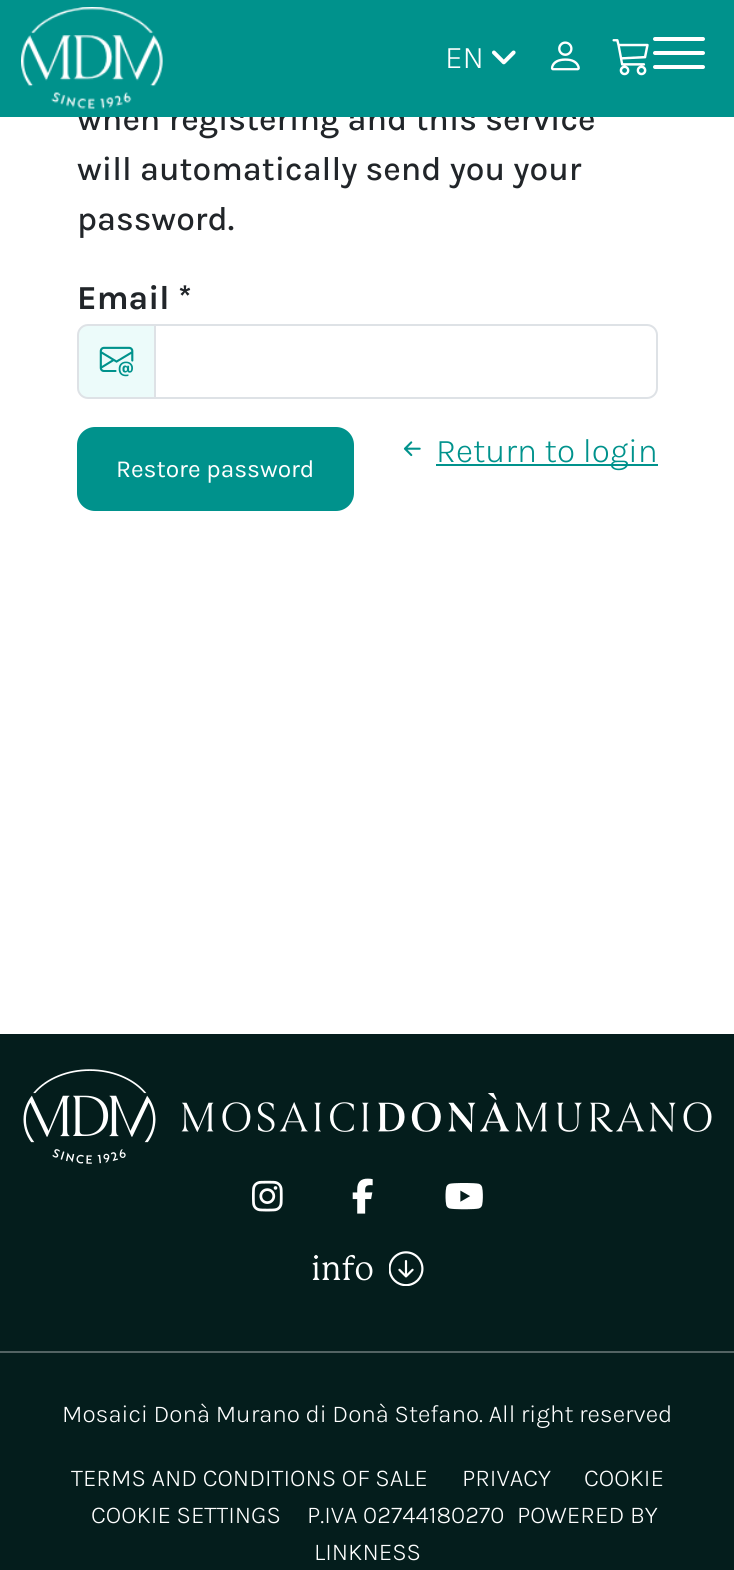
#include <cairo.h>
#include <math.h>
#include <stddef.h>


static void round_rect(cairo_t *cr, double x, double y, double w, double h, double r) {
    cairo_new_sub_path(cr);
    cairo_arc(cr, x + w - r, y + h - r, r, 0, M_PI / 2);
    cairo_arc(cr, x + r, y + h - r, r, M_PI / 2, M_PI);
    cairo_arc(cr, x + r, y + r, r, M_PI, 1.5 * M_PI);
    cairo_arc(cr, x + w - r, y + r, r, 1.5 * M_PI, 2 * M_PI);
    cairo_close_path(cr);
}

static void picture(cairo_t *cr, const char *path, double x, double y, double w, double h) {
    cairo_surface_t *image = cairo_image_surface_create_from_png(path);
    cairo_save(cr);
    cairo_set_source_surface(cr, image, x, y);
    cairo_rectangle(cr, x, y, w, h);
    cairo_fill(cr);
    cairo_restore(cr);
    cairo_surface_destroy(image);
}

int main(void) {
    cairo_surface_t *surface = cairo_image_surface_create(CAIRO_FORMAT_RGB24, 734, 1570);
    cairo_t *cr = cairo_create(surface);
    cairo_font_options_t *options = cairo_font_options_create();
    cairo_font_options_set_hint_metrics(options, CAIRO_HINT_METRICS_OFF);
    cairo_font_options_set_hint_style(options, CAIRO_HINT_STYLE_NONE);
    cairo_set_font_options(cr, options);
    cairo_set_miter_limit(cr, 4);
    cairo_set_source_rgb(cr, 1, 1, 1);
    cairo_paint(cr);
    cairo_select_font_face(cr, "Karla Medium", CAIRO_FONT_SLANT_NORMAL, CAIRO_FONT_WEIGHT_NORMAL);
    cairo_set_font_size(cr, 33.6);
    cairo_set_source_rgb(cr, 0.129, 0.145, 0.161);
    cairo_move_to(cr, 77, 130);
    cairo_show_text(cr, "when registering and this service");
    cairo_set_source_rgb(cr, 0, 0.573, 0.549);
    cairo_rectangle(cr, 0, 0, 734, 117);
    cairo_fill(cr);
    picture(cr, "img1.png", 21, 7, 142, 103);
    cairo_select_font_face(cr, "Karla Light", CAIRO_FONT_SLANT_NORMAL, CAIRO_FONT_WEIGHT_NORMAL);
    cairo_set_font_size(cr, 32);
    cairo_set_source_rgb(cr, 1, 1, 1);
    cairo_move_to(cr, 445, 68);
    cairo_show_text(cr, "EN");
    picture(cr, "img2.png", 492, 50, 24, 15);
    picture(cr, "img3.png", 550, 41, 30, 30);
    picture(cr, "img4.png", 612, 39, 37, 37);
    round_rect(cr, 653, 51, 52, 4, 2);
    cairo_fill(cr);
    round_rect(cr, 653, 37, 52, 4, 2);
    cairo_fill(cr);
    round_rect(cr, 653, 65, 52, 4, 2);
    cairo_fill(cr);
    cairo_select_font_face(cr, "Karla Medium", CAIRO_FONT_SLANT_NORMAL, CAIRO_FONT_WEIGHT_NORMAL);
    cairo_set_font_size(cr, 33.6);
    cairo_set_source_rgb(cr, 0.129, 0.145, 0.161);
    cairo_move_to(cr, 77, 180);
    cairo_show_text(cr, "will automatically send you your");
    cairo_move_to(cr, 77, 230);
    cairo_show_text(cr, "password.");
    cairo_select_font_face(cr, "Karla", CAIRO_FONT_SLANT_NORMAL, CAIRO_FONT_WEIGHT_BOLD);
    cairo_move_to(cr, 77, 309);
    cairo_show_text(cr, "Email *");
    cairo_set_source_rgb(cr, 0.925, 0.984, 0.98);
    cairo_new_path(cr);
    cairo_move_to(cr, 88, 325);
    cairo_line_to(cr, 155, 325);
    cairo_line_to(cr, 155, 398);
    cairo_line_to(cr, 88, 398);
    cairo_curve_to(cr, 82.5, 398, 78, 393.5, 78, 388);
    cairo_line_to(cr, 78, 335);
    cairo_curve_to(cr, 78, 329.5, 82.5, 325, 88, 325);
    cairo_close_path(cr);
    cairo_fill_preserve(cr);
    cairo_set_source_rgb(cr, 0.871, 0.886, 0.902);
    cairo_stroke(cr);
    picture(cr, "img5.png", 99, 346, 35, 31);
    cairo_new_path(cr);
    cairo_move_to(cr, 155, 325);
    cairo_line_to(cr, 647, 325);
    cairo_curve_to(cr, 652.5, 325, 657, 329.5, 657, 335);
    cairo_line_to(cr, 657, 388);
    cairo_curve_to(cr, 657, 393.5, 652.5, 398, 647, 398);
    cairo_line_to(cr, 155, 398);
    cairo_close_path(cr);
    cairo_stroke(cr);
    cairo_set_source_rgb(cr, 0, 0.573, 0.549);
    round_rect(cr, 77, 427, 277, 84, 18);
    cairo_fill(cr);
    cairo_select_font_face(cr, "Karla", CAIRO_FONT_SLANT_NORMAL, CAIRO_FONT_WEIGHT_NORMAL);
    cairo_set_font_size(cr, 24.5);
    cairo_set_source_rgb(cr, 1, 1, 1);
    cairo_move_to(cr, 116, 477);
    cairo_show_text(cr, "Restore password");
    picture(cr, "img6.png", 403, 441, 18, 16);
    cairo_set_source_rgb(cr, 0, 0.573, 0.549);
    cairo_rectangle(cr, 436, 464, 222, 2);
    cairo_fill(cr);
    cairo_select_font_face(cr, "Karla Light", CAIRO_FONT_SLANT_NORMAL, CAIRO_FONT_WEIGHT_NORMAL);
    cairo_set_font_size(cr, 33.6);
    cairo_move_to(cr, 436, 462);
    cairo_show_text(cr, "Return to login");
    cairo_set_source_rgb(cr, 0.016, 0.114, 0.11);
    cairo_rectangle(cr, 0, 1034, 734, 536);
    cairo_fill(cr);
    picture(cr, "img7.png", 23, 1069, 689, 95);
    picture(cr, "img8.png", 252, 1180, 31, 32);
    picture(cr, "img9.png", 352, 1178, 21, 36);
    picture(cr, "img10.png", 445, 1183, 38, 27);
    cairo_select_font_face(cr, "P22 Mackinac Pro", CAIRO_FONT_SLANT_NORMAL, CAIRO_FONT_WEIGHT_NORMAL);
    cairo_set_source_rgb(cr, 1, 1, 1);
    cairo_move_to(cr, 311, 1280);
    cairo_show_text(cr, "info");
    picture(cr, "img11.png", 389, 1251, 35, 35);
    cairo_set_source_rgb(cr, 0.325, 0.388, 0.388);
    cairo_rectangle(cr, 0, 1351, 734, 2);
    cairo_fill(cr);
    cairo_select_font_face(cr, "Karla Light", CAIRO_FONT_SLANT_NORMAL, CAIRO_FONT_WEIGHT_NORMAL);
    cairo_set_font_size(cr, 24.5);
    cairo_set_source_rgb(cr, 1, 1, 1);
    cairo_move_to(cr, 62, 1422);
    cairo_show_text(cr, "Mosaici Donà Murano di Donà Stefano. All right reserved");
    cairo_move_to(cr, 71, 1486);
    cairo_show_text(cr, "TERMS AND CONDITIONS OF SALE");
    cairo_move_to(cr, 462, 1486);
    cairo_show_text(cr, "PRIVACY");
    cairo_move_to(cr, 584, 1486);
    cairo_show_text(cr, "COOKIE");
    cairo_move_to(cr, 91, 1523);
    cairo_show_text(cr, "COOKIE SETTINGS");
    cairo_move_to(cr, 307, 1523);
    cairo_show_text(cr, "P.IVA 02744180270");
    cairo_move_to(cr, 517, 1523);
    cairo_show_text(cr, "POWERED BY");
    cairo_move_to(cr, 314, 1560);
    cairo_show_text(cr, "LINKNESS");
    cairo_surface_write_to_png(surface, "page.png");
    cairo_font_options_destroy(options);
    cairo_destroy(cr);
    cairo_surface_destroy(surface);
    return 0;
}
